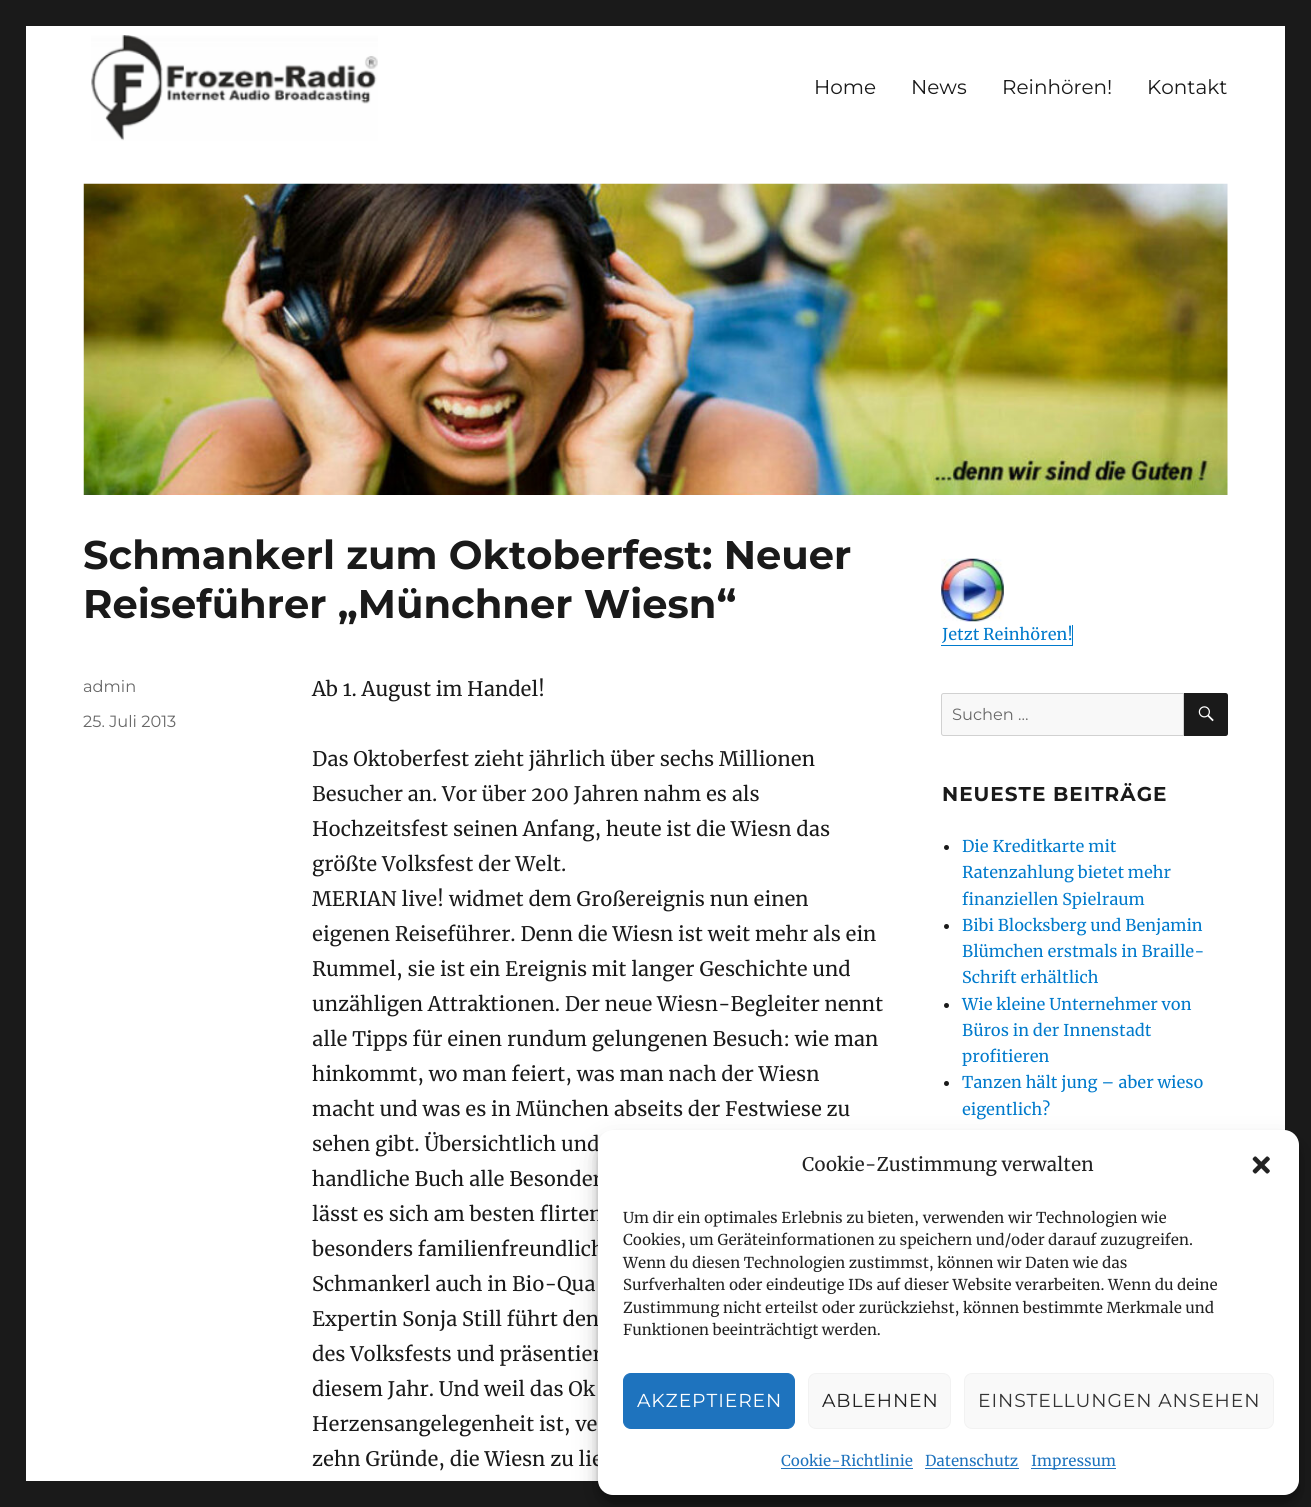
#include <cairo.h>
#include <math.h>
#include <stddef.h>


static void spaced_text(cairo_t *cr, double x, double y, const char *s, double letter, double word) {
    cairo_move_to(cr, x, y);
    while (*s) {
        char ch[5] = {0};
        int n = 0;
        do ch[n++] = *s++; while ((*s & 0xC0) == 0x80);
        cairo_show_text(cr, ch);
        cairo_rel_move_to(cr, letter + word * (*ch == ' '), 0);
    }
}

static void round_rect(cairo_t *cr, double x, double y, double w, double h, double r) {
    cairo_new_sub_path(cr);
    cairo_arc(cr, x + w - r, y + h - r, r, 0, M_PI / 2);
    cairo_arc(cr, x + r, y + h - r, r, M_PI / 2, M_PI);
    cairo_arc(cr, x + r, y + r, r, M_PI, 1.5 * M_PI);
    cairo_arc(cr, x + w - r, y + r, r, 1.5 * M_PI, 2 * M_PI);
    cairo_close_path(cr);
}

static void shadow(cairo_t *cr, double x, double y, double w, double h, double r, double blur, double alpha) {
    cairo_push_group_with_content(cr, CAIRO_CONTENT_ALPHA);
    cairo_set_operator(cr, CAIRO_OPERATOR_SOURCE);
    for (int i = 15; i >= -15 && fmin(w, h) + blur * i / 3 > 0; i -= 2) {
        double e = blur * i / 6;
        cairo_set_source_rgba(cr, 0, 0, 0, alpha * erfc((i - 1) / 8.5) / 2);
        round_rect(cr, x - e, y - e, w + 2 * e, h + 2 * e, fmax(0, fmin(r + e + blur * .6, fmin(w, h) / 2 + e)));
        cairo_fill(cr);
    }
    cairo_pattern_t *soft = cairo_pop_group(cr);
    cairo_mask(cr, soft);
    cairo_pattern_destroy(soft);
}

static void picture(cairo_t *cr, const char *path, double x, double y, double w, double h) {
    cairo_surface_t *image = cairo_image_surface_create_from_png(path);
    cairo_save(cr);
    cairo_set_source_surface(cr, image, x, y);
    cairo_rectangle(cr, x, y, w, h);
    cairo_fill(cr);
    cairo_restore(cr);
    cairo_surface_destroy(image);
}

int main(void) {
    cairo_surface_t *surface = cairo_image_surface_create(CAIRO_FORMAT_RGB24, 1311, 1507);
    cairo_t *cr = cairo_create(surface);
    cairo_font_options_t *options = cairo_font_options_create();
    cairo_font_options_set_hint_metrics(options, CAIRO_HINT_METRICS_OFF);
    cairo_font_options_set_hint_style(options, CAIRO_HINT_STYLE_NONE);
    cairo_set_font_options(cr, options);
    cairo_set_miter_limit(cr, 4);
    cairo_set_source_rgb(cr, 0.102, 0.102, 0.102);
    cairo_paint(cr);
    cairo_set_source_rgb(cr, 1, 1, 1);
    cairo_rectangle(cr, 26, 26, 1259, 1455);
    cairo_fill(cr);
    picture(cr, "img1.png", 91, 35, 287, 106);
    cairo_select_font_face(cr, "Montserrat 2 Thin", CAIRO_FONT_SLANT_NORMAL, CAIRO_FONT_WEIGHT_NORMAL);
    cairo_set_font_size(cr, 20);
    cairo_set_source_rgb(cr, 0.102, 0.102, 0.102);
    cairo_move_to(cr, 814, 94);
    cairo_show_text(cr, "Home");
    cairo_move_to(cr, 911, 94);
    cairo_show_text(cr, "News");
    cairo_move_to(cr, 1002, 94);
    cairo_show_text(cr, "Reinhören!");
    cairo_move_to(cr, 1147, 94);
    cairo_show_text(cr, "Kontakt");
    picture(cr, "img2.png", 83, 183, 1145, 312);
    cairo_select_font_face(cr, "Montserrat Thin", CAIRO_FONT_SLANT_NORMAL, CAIRO_FONT_WEIGHT_NORMAL);
    cairo_set_font_size(cr, 40);
    cairo_move_to(cr, 83, 569);
    cairo_show_text(cr, "Schmankerl zum Oktoberfest: Neuer");
    cairo_move_to(cr, 83, 618);
    cairo_show_text(cr, "Reiseführer „Münchner Wiesn“");
    cairo_select_font_face(cr, "Montserrat 2 Thin", CAIRO_FONT_SLANT_NORMAL, CAIRO_FONT_WEIGHT_NORMAL);
    cairo_set_font_size(cr, 16.25);
    cairo_set_source_rgb(cr, 0.408, 0.408, 0.408);
    cairo_move_to(cr, 83, 692);
    cairo_show_text(cr, "admin");
    cairo_move_to(cr, 83, 727);
    cairo_show_text(cr, "25. Juli 2013");
    cairo_select_font_face(cr, "Merriweather", CAIRO_FONT_SLANT_NORMAL, CAIRO_FONT_WEIGHT_NORMAL);
    cairo_set_font_size(cr, 20);
    cairo_set_source_rgb(cr, 0.102, 0.102, 0.102);
    cairo_move_to(cr, 312, 696);
    cairo_show_text(cr, "Ab 1. August im Handel!");
    cairo_move_to(cr, 312, 766);
    cairo_show_text(cr, "Das Oktoberfest zieht jährlich über sechs Millionen");
    cairo_move_to(cr, 312, 801);
    cairo_show_text(cr, "Besucher an. Vor über 200 Jahren nahm es als");
    cairo_move_to(cr, 312, 836);
    cairo_show_text(cr, "Hochzeitsfest seinen Anfang, heute ist die Wiesn das");
    cairo_move_to(cr, 312, 871);
    cairo_show_text(cr, "größte Volksfest der Welt.");
    cairo_move_to(cr, 312, 906);
    cairo_show_text(cr, "MERIAN live! widmet dem Großereignis nun einen");
    cairo_move_to(cr, 312, 941);
    cairo_show_text(cr, "eigenen Reiseführer. Denn die Wiesn ist weit mehr als ein");
    cairo_move_to(cr, 312, 976);
    cairo_show_text(cr, "Rummel, sie ist ein Ereignis mit langer Geschichte und");
    cairo_move_to(cr, 312, 1011);
    cairo_show_text(cr, "unzähligen Attraktionen. Der neue Wiesn-Begleiter nennt");
    cairo_move_to(cr, 312, 1046);
    cairo_show_text(cr, "alle Tipps für einen rundum gelungenen Besuch: wie man");
    cairo_move_to(cr, 312, 1081);
    cairo_show_text(cr, "hinkommt, wo man feiert, was man nach der Wiesn");
    cairo_move_to(cr, 312, 1116);
    cairo_show_text(cr, "macht und was es in München abseits der Festwiese zu");
    cairo_move_to(cr, 312, 1151);
    cairo_show_text(cr, "sehen gibt. Übersichtlich und");
    cairo_move_to(cr, 312, 1186);
    cairo_show_text(cr, "handliche Buch alle Besonder");
    cairo_move_to(cr, 312, 1221);
    cairo_show_text(cr, "lässt es sich am besten flirten");
    cairo_move_to(cr, 312, 1256);
    cairo_show_text(cr, "besonders familienfreundlich");
    cairo_move_to(cr, 312, 1291);
    cairo_show_text(cr, "Schmankerl auch in Bio-Qua");
    cairo_move_to(cr, 312, 1326);
    cairo_show_text(cr, "Expertin Sonja Still führt den");
    cairo_move_to(cr, 312, 1361);
    cairo_show_text(cr, "des Volksfests und präsentier");
    cairo_move_to(cr, 312, 1396);
    cairo_show_text(cr, "diesem Jahr. Und weil das Ok");
    cairo_move_to(cr, 312, 1431);
    cairo_show_text(cr, "Herzensangelegenheit ist, ve");
    cairo_move_to(cr, 312, 1466);
    cairo_show_text(cr, "zehn Gründe, die Wiesn zu lie");
    cairo_set_source_rgb(cr, 0, 0.478, 0.8);
    cairo_new_path(cr);
    cairo_move_to(cr, 941, 625);
    cairo_line_to(cr, 941, 646);
    cairo_line_to(cr, 1073, 646);
    cairo_line_to(cr, 1073, 625);
    cairo_line_to(cr, 1072, 625);
    cairo_line_to(cr, 1072, 645);
    cairo_line_to(cr, 941, 645);
    cairo_close_path(cr);
    cairo_fill(cr);
    picture(cr, "img3.png", 941, 558, 63, 64);
    cairo_set_font_size(cr, 16.25);
    cairo_move_to(cr, 942, 640);
    cairo_show_text(cr, "Jetzt Reinhören!");
    cairo_set_source_rgb(cr, 0.969, 0.969, 0.969);
    cairo_new_path(cr);
    cairo_move_to(cr, 943.5, 693.5);
    cairo_line_to(cr, 1183.5, 693.5);
    cairo_line_to(cr, 1183.5, 735.5);
    cairo_line_to(cr, 943.5, 735.5);
    cairo_curve_to(cr, 942.5, 735.5, 941.5, 734.5, 941.5, 733.5);
    cairo_line_to(cr, 941.5, 695.5);
    cairo_curve_to(cr, 941.5, 694.5, 942.5, 693.5, 943.5, 693.5);
    cairo_close_path(cr);
    cairo_fill_preserve(cr);
    cairo_set_source_rgb(cr, 0.82, 0.82, 0.82);
    cairo_set_line_width(cr, 1);
    cairo_stroke(cr);
    cairo_select_font_face(cr, "Montserrat 2 Thin", CAIRO_FONT_SLANT_NORMAL, CAIRO_FONT_WEIGHT_NORMAL);
    cairo_set_source_rgb(cr, 0.408, 0.408, 0.408);
    cairo_move_to(cr, 952, 720);
    cairo_show_text(cr, "Suchen …");
    cairo_set_source_rgb(cr, 0.102, 0.102, 0.102);
    cairo_new_path(cr);
    cairo_move_to(cr, 1184, 693);
    cairo_line_to(cr, 1225.5, 693);
    cairo_curve_to(cr, 1227, 693, 1228, 694, 1228, 695.5);
    cairo_line_to(cr, 1228, 733.5);
    cairo_curve_to(cr, 1228, 735, 1227, 736, 1225.5, 736);
    cairo_line_to(cr, 1184, 736);
    cairo_close_path(cr);
    cairo_fill(cr);
    picture(cr, "img4.png", 1198, 706, 16, 16);
    cairo_select_font_face(cr, "Montserrat Thin", CAIRO_FONT_SLANT_NORMAL, CAIRO_FONT_WEIGHT_NORMAL);
    cairo_set_font_size(cr, 20);
    spaced_text(cr, 942, 801, "NEUESTE BEITRÄGE", 1, 0);
    cairo_new_path(cr);
    cairo_arc(cr, 946.5, 847.5, 2.5, 0, 2 * M_PI);
    cairo_fill(cr);
    cairo_select_font_face(cr, "Merriweather", CAIRO_FONT_SLANT_NORMAL, CAIRO_FONT_WEIGHT_NORMAL);
    cairo_set_font_size(cr, 16.25);
    cairo_set_source_rgb(cr, 0, 0.478, 0.8);
    cairo_move_to(cr, 962, 852);
    cairo_show_text(cr, "Die Kreditkarte mit");
    cairo_move_to(cr, 962, 878);
    cairo_show_text(cr, "Ratenzahlung bietet mehr");
    cairo_move_to(cr, 962, 905);
    cairo_show_text(cr, "finanziellen Spielraum");
    cairo_set_source_rgb(cr, 0.102, 0.102, 0.102);
    cairo_new_path(cr);
    cairo_arc(cr, 946.5, 926.5, 2.5, 0, 2 * M_PI);
    cairo_fill(cr);
    cairo_set_source_rgb(cr, 0, 0.478, 0.8);
    cairo_move_to(cr, 962, 931);
    cairo_show_text(cr, "Bibi Blocksberg und Benjamin");
    cairo_move_to(cr, 962, 957);
    cairo_show_text(cr, "Blümchen erstmals in Braille-");
    cairo_move_to(cr, 962, 983);
    cairo_show_text(cr, "Schrift erhältlich");
    cairo_set_source_rgb(cr, 0.102, 0.102, 0.102);
    cairo_new_path(cr);
    cairo_arc(cr, 946.5, 1005.5, 2.5, 0, 2 * M_PI);
    cairo_fill(cr);
    cairo_set_source_rgb(cr, 0, 0.478, 0.8);
    cairo_move_to(cr, 962, 1010);
    cairo_show_text(cr, "Wie kleine Unternehmer von");
    cairo_move_to(cr, 962, 1036);
    cairo_show_text(cr, "Büros in der Innenstadt");
    cairo_move_to(cr, 962, 1062);
    cairo_show_text(cr, "profitieren");
    cairo_set_source_rgb(cr, 0.102, 0.102, 0.102);
    cairo_new_path(cr);
    cairo_arc(cr, 946.5, 1083.5, 2.5, 0, 2 * M_PI);
    cairo_fill(cr);
    cairo_set_source_rgb(cr, 0, 0.478, 0.8);
    cairo_move_to(cr, 962, 1088);
    cairo_show_text(cr, "Tanzen hält jung – aber wieso");
    cairo_move_to(cr, 962, 1115);
    cairo_show_text(cr, "eigentlich?");
    cairo_set_source_rgb(cr, 0, 0, 0);
    shadow(cr, 598, 1138, 701, 365, 15, 4, 0.23);
    shadow(cr, 598, 1143, 701, 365, 15, 12.5, 0.19);
    cairo_set_source_rgb(cr, 1, 1, 1);
    round_rect(cr, 598, 1130, 701, 365, 15);
    cairo_fill(cr);
    cairo_set_font_size(cr, 18.75);
    cairo_set_source_rgb(cr, 0.133, 0.133, 0.133);
    cairo_move_to(cr, 802, 1171);
    cairo_show_text(cr, "Cookie-Zustimmung verwalten");
    picture(cr, "img5.png", 1252, 1156, 18, 18);
    cairo_set_font_size(cr, 15);
    cairo_move_to(cr, 623, 1223);
    cairo_show_text(cr, "Um dir ein optimales Erlebnis zu bieten, verwenden wir Technologien wie");
    cairo_move_to(cr, 623, 1245);
    cairo_show_text(cr, "Cookies, um Geräteinformationen zu speichern und/oder darauf zuzugreifen.");
    cairo_move_to(cr, 623, 1268);
    cairo_show_text(cr, "Wenn du diesen Technologien zustimmst, können wir Daten wie das");
    cairo_move_to(cr, 623, 1290);
    cairo_show_text(cr, "Surfverhalten oder eindeutige IDs auf dieser Website verarbeiten. Wenn du deine");
    cairo_move_to(cr, 623, 1313);
    cairo_show_text(cr, "Zustimmung nicht erteilst oder zurückziehst, können bestimmte Merkmale und");
    cairo_move_to(cr, 623, 1335);
    cairo_show_text(cr, "Funktionen beeinträchtigt werden.");
    cairo_set_source_rgb(cr, 0.118, 0.451, 0.745);
    round_rect(cr, 623.5, 1373.5, 171, 55, 7.5);
    cairo_fill_preserve(cr);
    cairo_stroke(cr);
    cairo_select_font_face(cr, "Montserrat 2 Thin", CAIRO_FONT_SLANT_NORMAL, CAIRO_FONT_WEIGHT_NORMAL);
    cairo_set_font_size(cr, 18.75);
    cairo_set_source_rgb(cr, 1, 1, 1);
    spaced_text(cr, 637, 1407, "AKZEPTIEREN", 0.9, 0);
    cairo_set_source_rgb(cr, 0.976, 0.976, 0.976);
    round_rect(cr, 808.5, 1373.5, 142, 55, 7.5);
    cairo_fill_preserve(cr);
    cairo_set_source_rgb(cr, 0.949, 0.949, 0.949);
    cairo_stroke(cr);
    cairo_set_source_rgb(cr, 0.133, 0.133, 0.133);
    spaced_text(cr, 822, 1407, "ABLEHNEN", 0.9, 0);
    cairo_set_source_rgb(cr, 0.976, 0.976, 0.976);
    round_rect(cr, 964.5, 1373.5, 309, 55, 7.5);
    cairo_fill_preserve(cr);
    cairo_set_source_rgb(cr, 0.949, 0.949, 0.949);
    cairo_stroke(cr);
    cairo_set_source_rgb(cr, 0.2, 0.2, 0.2);
    spaced_text(cr, 978, 1407, "EINSTELLUNGEN ANSEHEN", 0.9, 0);
    cairo_select_font_face(cr, "Merriweather", CAIRO_FONT_SLANT_NORMAL, CAIRO_FONT_WEIGHT_NORMAL);
    cairo_set_font_size(cr, 15);
    cairo_set_source_rgb(cr, 0.118, 0.451, 0.745);
    cairo_move_to(cr, 781, 1466);
    cairo_show_text(cr, "Cookie-Richtlinie");
    cairo_rectangle(cr, 781, 1468, 132, 1);
    cairo_fill(cr);
    cairo_move_to(cr, 925, 1466);
    cairo_show_text(cr, "Datenschutz");
    cairo_rectangle(cr, 925, 1468, 94, 1);
    cairo_fill(cr);
    cairo_rectangle(cr, 1031, 1468, 85, 1);
    cairo_fill(cr);
    cairo_move_to(cr, 1031, 1466);
    cairo_show_text(cr, "Impressum");
    cairo_surface_write_to_png(surface, "page.png");
    cairo_font_options_destroy(options);
    cairo_destroy(cr);
    cairo_surface_destroy(surface);
    return 0;
}
